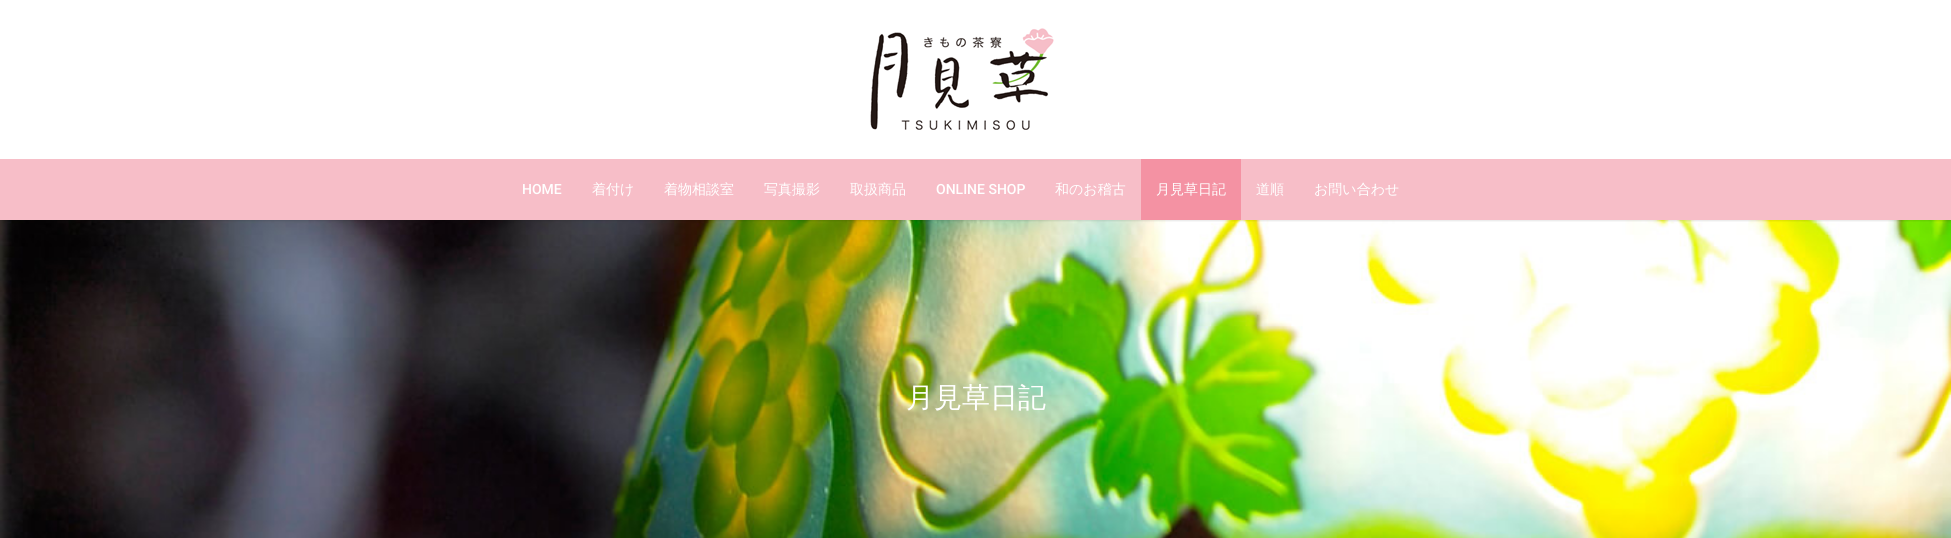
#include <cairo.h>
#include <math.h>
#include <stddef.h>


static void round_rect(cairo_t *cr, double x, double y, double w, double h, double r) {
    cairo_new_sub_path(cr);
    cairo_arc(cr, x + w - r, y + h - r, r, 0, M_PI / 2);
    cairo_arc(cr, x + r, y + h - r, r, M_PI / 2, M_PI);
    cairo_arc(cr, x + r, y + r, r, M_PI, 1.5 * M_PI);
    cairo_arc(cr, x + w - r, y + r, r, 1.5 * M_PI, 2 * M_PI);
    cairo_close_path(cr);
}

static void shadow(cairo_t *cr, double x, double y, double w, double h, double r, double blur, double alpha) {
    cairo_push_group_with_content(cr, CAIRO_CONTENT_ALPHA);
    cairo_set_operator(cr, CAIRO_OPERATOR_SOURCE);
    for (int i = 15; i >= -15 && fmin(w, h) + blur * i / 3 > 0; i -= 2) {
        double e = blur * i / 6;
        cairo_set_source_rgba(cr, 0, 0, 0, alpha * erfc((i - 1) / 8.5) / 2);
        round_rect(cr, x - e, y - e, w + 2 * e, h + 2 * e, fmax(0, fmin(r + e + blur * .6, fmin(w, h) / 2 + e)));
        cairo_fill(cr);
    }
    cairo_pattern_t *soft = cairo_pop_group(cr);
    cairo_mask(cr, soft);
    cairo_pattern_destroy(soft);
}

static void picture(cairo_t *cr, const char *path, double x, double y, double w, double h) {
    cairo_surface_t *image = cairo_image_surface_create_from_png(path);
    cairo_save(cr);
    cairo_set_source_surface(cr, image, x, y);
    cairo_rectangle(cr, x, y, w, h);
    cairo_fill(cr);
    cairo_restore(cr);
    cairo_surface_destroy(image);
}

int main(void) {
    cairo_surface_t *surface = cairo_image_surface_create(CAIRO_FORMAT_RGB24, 1951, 538);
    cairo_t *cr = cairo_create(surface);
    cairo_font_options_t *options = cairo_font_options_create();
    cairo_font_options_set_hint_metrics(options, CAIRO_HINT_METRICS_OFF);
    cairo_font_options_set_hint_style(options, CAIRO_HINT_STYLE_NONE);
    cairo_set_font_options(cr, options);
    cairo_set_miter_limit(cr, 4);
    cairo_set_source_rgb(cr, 1, 1, 1);
    cairo_paint(cr);
    picture(cr, "img2.png", 0, 220, 1951, 318);
    cairo_save(cr);
    cairo_rectangle(cr, 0, 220, 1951, 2);
    cairo_clip(cr);
    cairo_set_source_rgb(cr, 0, 0, 0);
    shadow(cr, 0, 0, 1951, 220, 0, 1.5, 0.2);
    cairo_restore(cr);
    picture(cr, "img1.png", 870, 28, 184, 102);
    cairo_set_source_rgb(cr, 0.965, 0.745, 0.784);
    cairo_rectangle(cr, 0, 159, 1951, 61);
    cairo_fill(cr);
    cairo_select_font_face(cr, "Roboto Medium", CAIRO_FONT_SLANT_NORMAL, CAIRO_FONT_WEIGHT_NORMAL);
    cairo_set_font_size(cr, 14);
    cairo_set_source_rgb(cr, 1, 1, 1);
    cairo_move_to(cr, 522, 194);
    cairo_show_text(cr, "HOME");
    cairo_select_font_face(cr, "WenQuanYi Zen Hei Medium", CAIRO_FONT_SLANT_NORMAL, CAIRO_FONT_WEIGHT_NORMAL);
    cairo_move_to(cr, 592, 194);
    cairo_show_text(cr, "着付け");
    cairo_move_to(cr, 664, 194);
    cairo_show_text(cr, "着物相談室");
    cairo_move_to(cr, 764, 194);
    cairo_show_text(cr, "写真撮影");
    cairo_move_to(cr, 850, 194);
    cairo_show_text(cr, "取扱商品");
    cairo_select_font_face(cr, "Roboto Medium", CAIRO_FONT_SLANT_NORMAL, CAIRO_FONT_WEIGHT_NORMAL);
    cairo_move_to(cr, 936, 194);
    cairo_show_text(cr, "ONLINE SHOP");
    cairo_select_font_face(cr, "WenQuanYi Zen Hei Medium", CAIRO_FONT_SLANT_NORMAL, CAIRO_FONT_WEIGHT_NORMAL);
    cairo_move_to(cr, 1055, 194);
    cairo_show_text(cr, "和のお稽古");
    cairo_set_source_rgb(cr, 0.957, 0.573, 0.639);
    cairo_rectangle(cr, 1141, 159, 100, 61);
    cairo_fill(cr);
    cairo_set_source_rgb(cr, 1, 1, 1);
    cairo_move_to(cr, 1156, 194);
    cairo_show_text(cr, "月見草日記");
    cairo_move_to(cr, 1256, 194);
    cairo_show_text(cr, "道順");
    cairo_move_to(cr, 1314, 194);
    cairo_show_text(cr, "お問い合わせ");
    cairo_set_font_size(cr, 28);
    cairo_move_to(cr, 906, 407);
    cairo_show_text(cr, "月見草日記");
    cairo_surface_write_to_png(surface, "page.png");
    cairo_font_options_destroy(options);
    cairo_destroy(cr);
    cairo_surface_destroy(surface);
    return 0;
}
